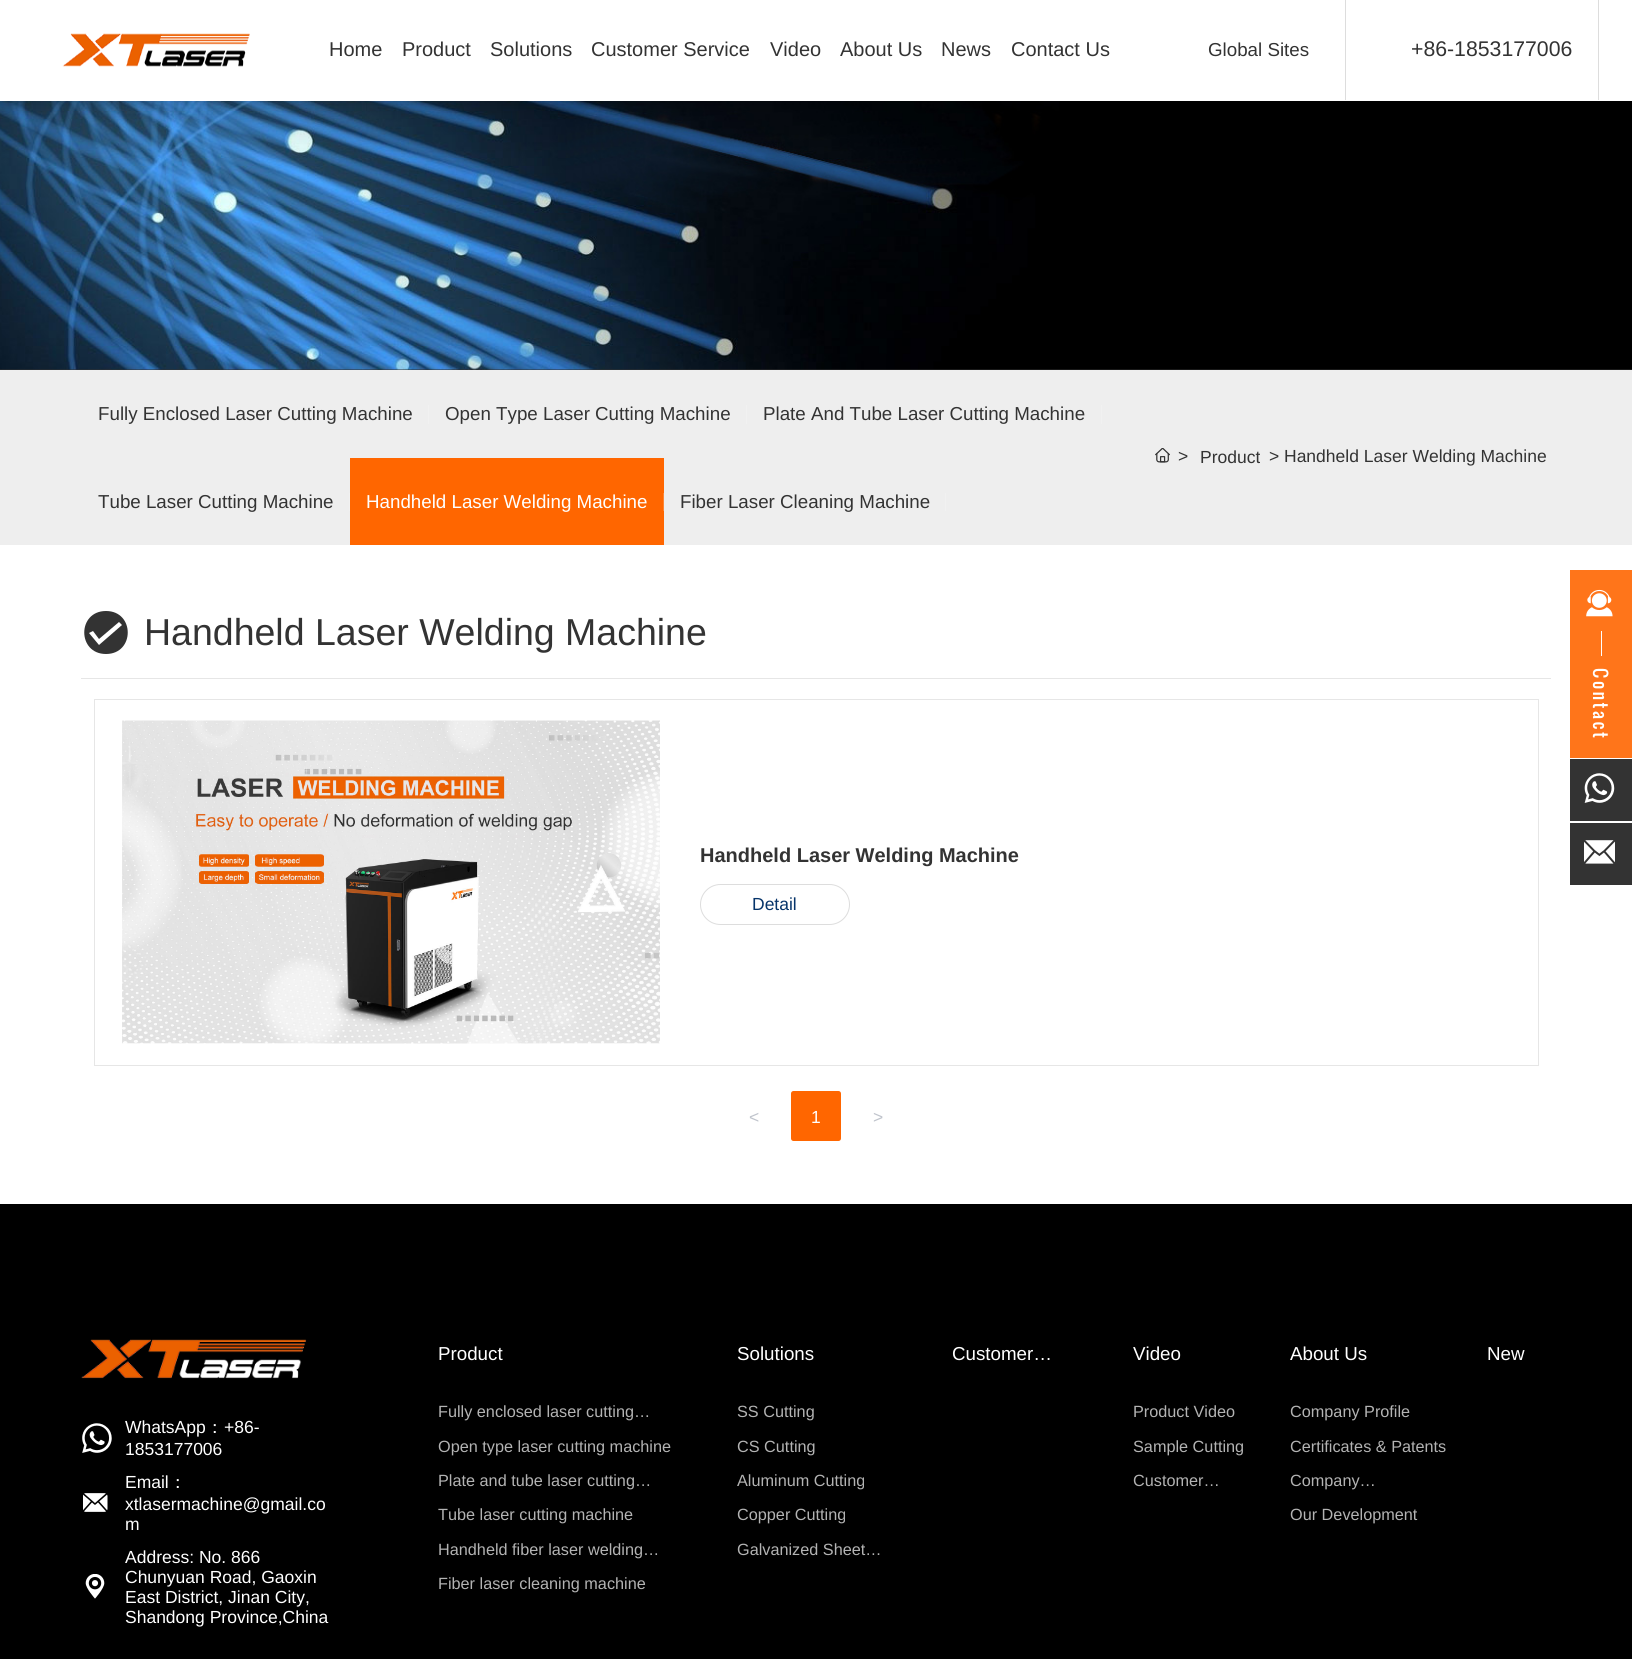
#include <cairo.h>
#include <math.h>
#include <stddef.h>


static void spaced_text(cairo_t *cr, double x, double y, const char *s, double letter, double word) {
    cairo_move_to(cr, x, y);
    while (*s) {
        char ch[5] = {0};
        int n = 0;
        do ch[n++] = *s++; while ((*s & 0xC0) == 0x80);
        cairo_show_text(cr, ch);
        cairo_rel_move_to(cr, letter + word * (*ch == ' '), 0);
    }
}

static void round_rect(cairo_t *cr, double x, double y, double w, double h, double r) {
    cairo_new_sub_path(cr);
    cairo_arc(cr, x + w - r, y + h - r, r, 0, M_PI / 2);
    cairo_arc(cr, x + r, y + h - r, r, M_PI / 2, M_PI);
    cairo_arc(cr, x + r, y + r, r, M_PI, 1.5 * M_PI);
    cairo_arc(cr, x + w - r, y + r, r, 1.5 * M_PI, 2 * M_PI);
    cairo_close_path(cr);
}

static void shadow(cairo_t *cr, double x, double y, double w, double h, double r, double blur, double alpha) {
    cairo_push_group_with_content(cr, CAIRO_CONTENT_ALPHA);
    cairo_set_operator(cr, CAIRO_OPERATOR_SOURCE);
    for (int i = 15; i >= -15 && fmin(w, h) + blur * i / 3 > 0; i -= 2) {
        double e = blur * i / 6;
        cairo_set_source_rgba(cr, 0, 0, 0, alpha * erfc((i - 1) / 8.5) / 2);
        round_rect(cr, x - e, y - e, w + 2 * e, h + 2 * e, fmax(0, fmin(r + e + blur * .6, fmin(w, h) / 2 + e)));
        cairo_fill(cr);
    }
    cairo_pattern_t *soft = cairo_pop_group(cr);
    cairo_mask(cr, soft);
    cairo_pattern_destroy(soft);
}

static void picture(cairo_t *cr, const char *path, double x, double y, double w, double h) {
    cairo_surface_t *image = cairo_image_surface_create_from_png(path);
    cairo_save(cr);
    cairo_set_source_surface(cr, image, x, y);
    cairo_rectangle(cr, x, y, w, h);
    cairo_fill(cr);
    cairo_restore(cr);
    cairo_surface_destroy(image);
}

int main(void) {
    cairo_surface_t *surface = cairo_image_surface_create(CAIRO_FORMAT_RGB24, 1632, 1659);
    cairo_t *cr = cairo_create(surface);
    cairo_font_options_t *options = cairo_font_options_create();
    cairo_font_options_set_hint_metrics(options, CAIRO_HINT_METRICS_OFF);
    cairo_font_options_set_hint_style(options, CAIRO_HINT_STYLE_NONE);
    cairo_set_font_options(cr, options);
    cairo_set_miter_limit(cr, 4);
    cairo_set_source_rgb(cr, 1, 1, 1);
    cairo_paint(cr);
    cairo_set_source_rgb(cr, 0.2, 0.2, 0.2);
    cairo_rectangle(cr, 0, 369, 1632, 1);
    cairo_fill(cr);
    picture(cr, "img2.png", 0, 101, 1632, 269);
    cairo_set_source_rgb(cr, 0, 0, 0);
    shadow(cr, 0, 0, 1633, 101, 0, 9.5, 0.2);
    cairo_set_source_rgb(cr, 1, 1, 1);
    cairo_rectangle(cr, 0, 0, 1632, 101);
    cairo_fill(cr);
    picture(cr, "img1.png", 62, 33, 188, 34);
    cairo_select_font_face(cr, "Liberation Sans", CAIRO_FONT_SLANT_NORMAL, CAIRO_FONT_WEIGHT_NORMAL);
    cairo_set_font_size(cr, 20);
    cairo_set_source_rgb(cr, 0.2, 0.2, 0.2);
    cairo_move_to(cr, 329, 56);
    cairo_show_text(cr, "Home");
    cairo_move_to(cr, 402, 56);
    cairo_show_text(cr, "Product");
    cairo_move_to(cr, 490, 56);
    cairo_show_text(cr, "Solutions");
    cairo_move_to(cr, 591, 56);
    cairo_show_text(cr, "Customer Service");
    cairo_move_to(cr, 770, 56);
    cairo_show_text(cr, "Video");
    cairo_move_to(cr, 840, 56);
    cairo_show_text(cr, "About Us");
    cairo_move_to(cr, 941, 56);
    cairo_show_text(cr, "News");
    cairo_move_to(cr, 1011, 56);
    cairo_show_text(cr, "Contact Us");
    cairo_set_font_size(cr, 18.75);
    cairo_move_to(cr, 1208, 56);
    cairo_show_text(cr, "Global Sites");
    cairo_set_source_rgb(cr, 0.867, 0.867, 0.867);
    cairo_rectangle(cr, 1598, 0, 1, 100);
    cairo_fill(cr);
    cairo_rectangle(cr, 1345, 0, 1, 100);
    cairo_fill(cr);
    cairo_set_font_size(cr, 21.25);
    cairo_set_source_rgb(cr, 0.2, 0.2, 0.2);
    cairo_move_to(cr, 1411, 56);
    cairo_show_text(cr, "+86-1853177006");
    cairo_set_source_rgb(cr, 0.933, 0.933, 0.933);
    cairo_rectangle(cr, 0, 370, 1632, 175);
    cairo_fill(cr);
    cairo_set_font_size(cr, 18.75);
    cairo_set_source_rgb(cr, 0.2, 0.2, 0.2);
    cairo_move_to(cr, 98, 420);
    cairo_show_text(cr, "Fully Enclosed Laser Cutting Machine");
    cairo_set_source_rgb(cr, 0.945, 0.945, 0.945);
    cairo_rectangle(cr, 428, 405, 1, 19);
    cairo_fill(cr);
    cairo_set_source_rgb(cr, 0.2, 0.2, 0.2);
    cairo_move_to(cr, 445, 420);
    cairo_show_text(cr, "Open Type Laser Cutting Machine");
    cairo_set_source_rgb(cr, 0.945, 0.945, 0.945);
    cairo_rectangle(cr, 746, 405, 1, 19);
    cairo_fill(cr);
    cairo_set_source_rgb(cr, 0.2, 0.2, 0.2);
    cairo_move_to(cr, 763, 420);
    cairo_show_text(cr, "Plate And Tube Laser Cutting Machine");
    cairo_set_source_rgb(cr, 0.945, 0.945, 0.945);
    cairo_rectangle(cr, 1101, 405, 1, 19);
    cairo_fill(cr);
    cairo_set_source_rgb(cr, 0.2, 0.2, 0.2);
    cairo_move_to(cr, 98, 508);
    cairo_show_text(cr, "Tube Laser Cutting Machine");
    cairo_set_source_rgb(cr, 0.945, 0.945, 0.945);
    cairo_rectangle(cr, 349, 493, 1, 18);
    cairo_fill(cr);
    cairo_set_source_rgb(cr, 1, 0.4, 0);
    cairo_rectangle(cr, 350, 458, 314, 87);
    cairo_fill(cr);
    cairo_set_source_rgb(cr, 1, 1, 1);
    cairo_move_to(cr, 366, 508);
    cairo_show_text(cr, "Handheld Laser Welding Machine");
    cairo_set_source_rgb(cr, 1, 0.522, 0.2);
    cairo_rectangle(cr, 663, 493, 1, 18);
    cairo_fill(cr);
    cairo_set_source_rgb(cr, 0.2, 0.2, 0.2);
    cairo_move_to(cr, 680, 508);
    cairo_show_text(cr, "Fiber Laser Cleaning Machine");
    cairo_set_source_rgb(cr, 0.945, 0.945, 0.945);
    cairo_rectangle(cr, 945, 493, 1, 18);
    cairo_fill(cr);
    picture(cr, "img3.png", 1155, 448, 15, 15);
    cairo_set_font_size(cr, 17.5);
    cairo_set_source_rgb(cr, 0.2, 0.2, 0.2);
    cairo_move_to(cr, 1178, 462);
    cairo_show_text(cr, ">");
    cairo_move_to(cr, 1200, 463);
    cairo_show_text(cr, "Product");
    cairo_move_to(cr, 1269, 462);
    cairo_show_text(cr, ">");
    cairo_move_to(cr, 1284, 462);
    cairo_show_text(cr, "Handheld Laser Welding Machine");
    cairo_new_path(cr);
    cairo_move_to(cr, 106, 611);
    cairo_curve_to(cr, 77, 611, 77, 654, 106, 654);
    cairo_curve_to(cr, 135, 654, 135, 611, 106, 611);
    cairo_close_path(cr);
    cairo_move_to(cr, 99, 645);
    cairo_line_to(cr, 89, 633);
    cairo_line_to(cr, 93, 631);
    cairo_line_to(cr, 99, 639);
    cairo_line_to(cr, 119, 622);
    cairo_line_to(cr, 122, 625);
    cairo_close_path(cr);
    cairo_fill(cr);
    cairo_set_font_size(cr, 37.5);
    cairo_move_to(cr, 144, 645);
    cairo_show_text(cr, "Handheld Laser Welding Machine");
    cairo_set_source_rgb(cr, 0.902, 0.902, 0.902);
    cairo_rectangle(cr, 81, 678, 1470, 1);
    cairo_fill(cr);
    cairo_rectangle(cr, 94.5, 699.5, 1444, 366);
    cairo_set_line_width(cr, 1);
    cairo_stroke(cr);
    picture(cr, "img4.png", 122, 720, 538, 324);
    cairo_select_font_face(cr, "Liberation Sans", CAIRO_FONT_SLANT_NORMAL, CAIRO_FONT_WEIGHT_BOLD);
    cairo_set_font_size(cr, 20);
    cairo_set_source_rgb(cr, 0.2, 0.2, 0.2);
    cairo_move_to(cr, 700, 862);
    cairo_show_text(cr, "Handheld Laser Welding Machine");
    round_rect(cr, 700.5, 884.5, 149, 40, 20);
    cairo_set_source_rgb(cr, 0.867, 0.867, 0.867);
    cairo_stroke(cr);
    cairo_select_font_face(cr, "Liberation Sans", CAIRO_FONT_SLANT_NORMAL, CAIRO_FONT_WEIGHT_NORMAL);
    cairo_set_font_size(cr, 17.5);
    cairo_set_source_rgb(cr, 0.024, 0.204, 0.416);
    cairo_move_to(cr, 752, 910);
    cairo_show_text(cr, "Detail");
    cairo_set_source_rgb(cr, 0.753, 0.769, 0.8);
    cairo_move_to(cr, 749, 1123);
    cairo_show_text(cr, "<");
    cairo_set_source_rgb(cr, 1, 0.4, 0);
    round_rect(cr, 791, 1091, 50, 50, 2.5);
    cairo_fill(cr);
    cairo_set_source_rgb(cr, 1, 1, 1);
    cairo_move_to(cr, 811, 1123);
    cairo_show_text(cr, "1");
    cairo_set_source_rgb(cr, 0.753, 0.769, 0.8);
    cairo_move_to(cr, 873, 1123);
    cairo_show_text(cr, ">");
    cairo_set_source_rgb(cr, 1, 0.459, 0.102);
    cairo_rectangle(cr, 1570, 570, 62, 188);
    cairo_fill(cr);
    picture(cr, "img5.png", 1586, 589, 27, 28);
    cairo_set_source_rgb(cr, 1, 1, 1);
    cairo_rectangle(cr, 1601, 631, 1, 25);
    cairo_fill(cr);
    cairo_select_font_face(cr, "Oswald", CAIRO_FONT_SLANT_NORMAL, CAIRO_FONT_WEIGHT_NORMAL);
    cairo_save(cr);
    cairo_translate(cr, 1593, 668);
    cairo_rotate(cr, 90 * M_PI / 180);
    spaced_text(cr, 0, 0, "Contact", 2.5, 0);
    cairo_restore(cr);
    cairo_set_source_rgb(cr, 0.2, 0.2, 0.2);
    cairo_rectangle(cr, 1570, 759, 62, 62);
    cairo_fill(cr);
    picture(cr, "img6.png", 1584, 773, 31, 30);
    cairo_rectangle(cr, 1570, 823, 62, 62);
    cairo_fill(cr);
    picture(cr, "img7.png", 1584, 840, 31, 24);
    cairo_set_source_rgb(cr, 0, 0, 0);
    cairo_rectangle(cr, 0, 1204, 1632, 455);
    cairo_fill(cr);
    picture(cr, "img8.png", 81, 1339, 226, 40);
    picture(cr, "img9.png", 82, 1423, 30, 30);
    cairo_select_font_face(cr, "Liberation Sans", CAIRO_FONT_SLANT_NORMAL, CAIRO_FONT_WEIGHT_NORMAL);
    cairo_set_source_rgb(cr, 1, 1, 1);
    cairo_move_to(cr, 125, 1433);
    cairo_show_text(cr, "WhatsApp");
    cairo_select_font_face(cr, "WenQuanYi Zen Hei Medium", CAIRO_FONT_SLANT_NORMAL, CAIRO_FONT_WEIGHT_NORMAL);
    cairo_move_to(cr, 206, 1433);
    cairo_show_text(cr, "：");
    cairo_select_font_face(cr, "Liberation Sans", CAIRO_FONT_SLANT_NORMAL, CAIRO_FONT_WEIGHT_NORMAL);
    cairo_move_to(cr, 224, 1433);
    cairo_show_text(cr, "+86-");
    cairo_move_to(cr, 125, 1455);
    cairo_show_text(cr, "1853177006");
    picture(cr, "img10.png", 83, 1493, 25, 19);
    cairo_move_to(cr, 125, 1488);
    cairo_show_text(cr, "Email");
    cairo_select_font_face(cr, "WenQuanYi Zen Hei Medium", CAIRO_FONT_SLANT_NORMAL, CAIRO_FONT_WEIGHT_NORMAL);
    cairo_move_to(cr, 169, 1488);
    cairo_show_text(cr, "：");
    cairo_select_font_face(cr, "Liberation Sans", CAIRO_FONT_SLANT_NORMAL, CAIRO_FONT_WEIGHT_NORMAL);
    cairo_move_to(cr, 125, 1510);
    cairo_show_text(cr, "xtlasermachine@gmail.co");
    cairo_move_to(cr, 125, 1530);
    cairo_show_text(cr, "m");
    picture(cr, "img11.png", 85, 1574, 20, 25);
    cairo_move_to(cr, 125, 1563);
    cairo_show_text(cr, "Address: No. 866");
    cairo_move_to(cr, 125, 1583);
    cairo_show_text(cr, "Chunyuan Road, Gaoxin");
    cairo_move_to(cr, 125, 1603);
    cairo_show_text(cr, "East District, Jinan City,");
    cairo_move_to(cr, 125, 1623);
    cairo_show_text(cr, "Shandong Province,China");
    cairo_set_font_size(cr, 18.75);
    cairo_move_to(cr, 438, 1360);
    cairo_show_text(cr, "Product");
    cairo_set_font_size(cr, 16.25);
    cairo_set_source_rgb(cr, 0.702, 0.702, 0.702);
    cairo_move_to(cr, 438, 1417);
    cairo_show_text(cr, "Fully enclosed laser cutting…");
    cairo_move_to(cr, 438, 1452);
    cairo_show_text(cr, "Open type laser cutting machine");
    cairo_move_to(cr, 438, 1486);
    cairo_show_text(cr, "Plate and tube laser cutting…");
    cairo_move_to(cr, 438, 1520);
    cairo_show_text(cr, "Tube laser cutting machine");
    cairo_move_to(cr, 438, 1555);
    cairo_show_text(cr, "Handheld fiber laser welding…");
    cairo_move_to(cr, 438, 1589);
    cairo_show_text(cr, "Fiber laser cleaning machine");
    cairo_set_font_size(cr, 18.75);
    cairo_set_source_rgb(cr, 1, 1, 1);
    cairo_move_to(cr, 737, 1360);
    cairo_show_text(cr, "Solutions");
    cairo_set_font_size(cr, 16.25);
    cairo_set_source_rgb(cr, 0.702, 0.702, 0.702);
    cairo_move_to(cr, 737, 1417);
    cairo_show_text(cr, "SS Cutting");
    cairo_move_to(cr, 737, 1452);
    cairo_show_text(cr, "CS Cutting");
    cairo_move_to(cr, 737, 1486);
    cairo_show_text(cr, "Aluminum Cutting");
    cairo_move_to(cr, 737, 1520);
    cairo_show_text(cr, "Copper Cutting");
    cairo_move_to(cr, 737, 1555);
    cairo_show_text(cr, "Galvanized Sheet…");
    cairo_set_font_size(cr, 18.75);
    cairo_set_source_rgb(cr, 1, 1, 1);
    cairo_move_to(cr, 952, 1360);
    cairo_show_text(cr, "Customer…");
    cairo_move_to(cr, 1133, 1360);
    cairo_show_text(cr, "Video");
    cairo_set_font_size(cr, 16.25);
    cairo_set_source_rgb(cr, 0.702, 0.702, 0.702);
    cairo_move_to(cr, 1133, 1417);
    cairo_show_text(cr, "Product Video");
    cairo_move_to(cr, 1133, 1452);
    cairo_show_text(cr, "Sample Cutting");
    cairo_move_to(cr, 1133, 1486);
    cairo_show_text(cr, "Customer…");
    cairo_set_font_size(cr, 18.75);
    cairo_set_source_rgb(cr, 1, 1, 1);
    cairo_move_to(cr, 1290, 1360);
    cairo_show_text(cr, "About Us");
    cairo_set_font_size(cr, 16.25);
    cairo_set_source_rgb(cr, 0.702, 0.702, 0.702);
    cairo_move_to(cr, 1290, 1417);
    cairo_show_text(cr, "Company Profile");
    cairo_move_to(cr, 1290, 1452);
    cairo_show_text(cr, "Certificates & Patents");
    cairo_move_to(cr, 1290, 1486);
    cairo_show_text(cr, "Company…");
    cairo_move_to(cr, 1290, 1520);
    cairo_show_text(cr, "Our Development");
    cairo_set_font_size(cr, 18.75);
    cairo_set_source_rgb(cr, 1, 1, 1);
    cairo_move_to(cr, 1487, 1360);
    cairo_show_text(cr, "New");
    cairo_surface_write_to_png(surface, "page.png");
    cairo_font_options_destroy(options);
    cairo_destroy(cr);
    cairo_surface_destroy(surface);
    return 0;
}
